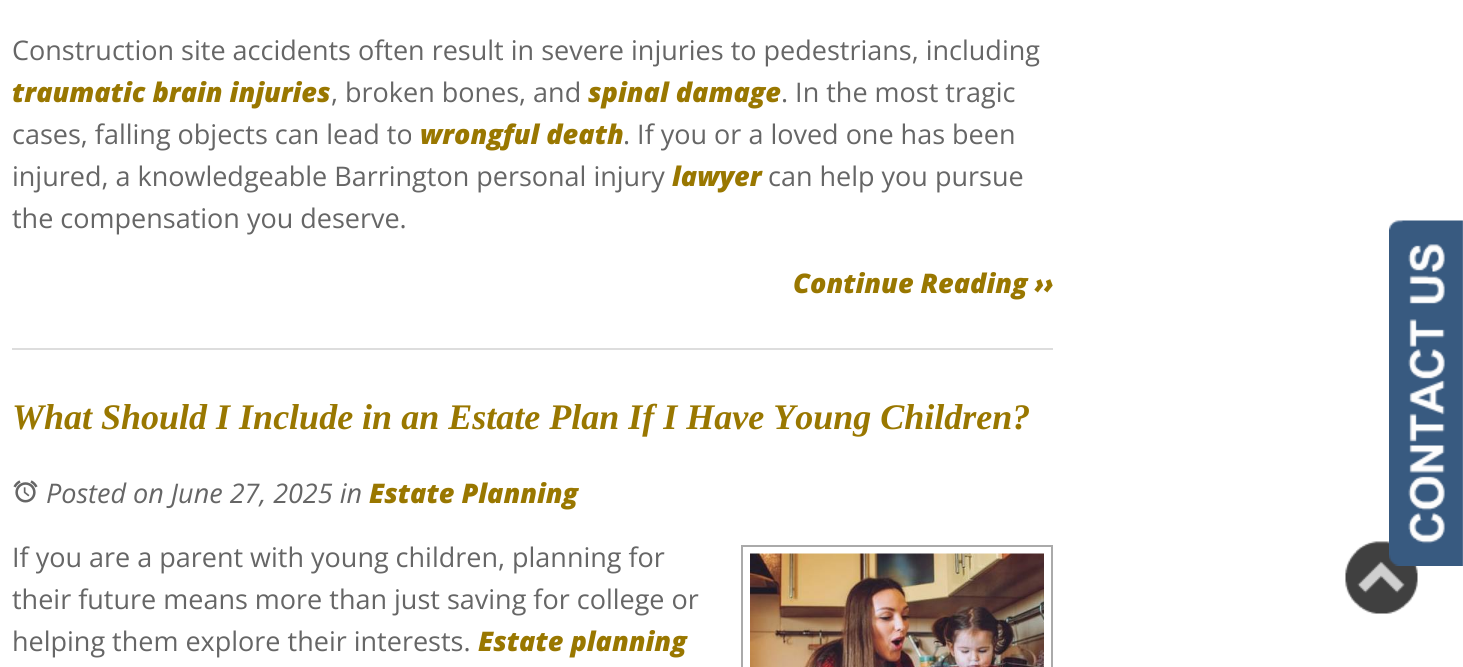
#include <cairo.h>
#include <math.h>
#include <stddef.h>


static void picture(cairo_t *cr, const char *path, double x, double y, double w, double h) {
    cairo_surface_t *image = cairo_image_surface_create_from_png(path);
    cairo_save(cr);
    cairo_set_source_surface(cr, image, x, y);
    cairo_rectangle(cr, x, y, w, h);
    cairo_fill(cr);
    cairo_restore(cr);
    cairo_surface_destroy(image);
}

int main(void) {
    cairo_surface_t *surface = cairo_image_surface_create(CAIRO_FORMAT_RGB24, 1463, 667);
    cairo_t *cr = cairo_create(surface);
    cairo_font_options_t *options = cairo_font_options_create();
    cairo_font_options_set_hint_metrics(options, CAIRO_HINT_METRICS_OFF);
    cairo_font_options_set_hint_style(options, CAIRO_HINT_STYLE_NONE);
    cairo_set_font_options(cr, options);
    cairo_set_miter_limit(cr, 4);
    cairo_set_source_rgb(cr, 1, 1, 1);
    cairo_paint(cr);
    cairo_set_source_rgb(cr, 0.867, 0.867, 0.867);
    cairo_rectangle(cr, 12, 348, 1041, 2);
    cairo_fill(cr);
    cairo_select_font_face(cr, "Open Sans", CAIRO_FONT_SLANT_NORMAL, CAIRO_FONT_WEIGHT_NORMAL);
    cairo_set_font_size(cr, 27);
    cairo_set_source_rgb(cr, 0.4, 0.4, 0.4);
    cairo_move_to(cr, 12, 60);
    cairo_show_text(cr, "Construction site accidents often result in severe injuries to pedestrians, including");
    cairo_select_font_face(cr, "Open Sans ExtraBold", CAIRO_FONT_SLANT_ITALIC, CAIRO_FONT_WEIGHT_NORMAL);
    cairo_set_source_rgb(cr, 0.6, 0.467, 0);
    cairo_move_to(cr, 12, 102);
    cairo_show_text(cr, "traumatic brain injuries");
    cairo_select_font_face(cr, "Open Sans", CAIRO_FONT_SLANT_NORMAL, CAIRO_FONT_WEIGHT_NORMAL);
    cairo_set_source_rgb(cr, 0.4, 0.4, 0.4);
    cairo_move_to(cr, 331, 102);
    cairo_show_text(cr, ", broken bones, and");
    cairo_select_font_face(cr, "Open Sans ExtraBold", CAIRO_FONT_SLANT_ITALIC, CAIRO_FONT_WEIGHT_NORMAL);
    cairo_set_source_rgb(cr, 0.6, 0.467, 0);
    cairo_move_to(cr, 588, 102);
    cairo_show_text(cr, "spinal damage");
    cairo_select_font_face(cr, "Open Sans", CAIRO_FONT_SLANT_NORMAL, CAIRO_FONT_WEIGHT_NORMAL);
    cairo_set_source_rgb(cr, 0.4, 0.4, 0.4);
    cairo_move_to(cr, 781, 102);
    cairo_show_text(cr, ". In the most tragic");
    cairo_move_to(cr, 12, 144);
    cairo_show_text(cr, "cases, falling objects can lead to");
    cairo_select_font_face(cr, "Open Sans ExtraBold", CAIRO_FONT_SLANT_ITALIC, CAIRO_FONT_WEIGHT_NORMAL);
    cairo_set_source_rgb(cr, 0.6, 0.467, 0);
    cairo_move_to(cr, 420, 144);
    cairo_show_text(cr, "wrongful death");
    cairo_select_font_face(cr, "Open Sans", CAIRO_FONT_SLANT_NORMAL, CAIRO_FONT_WEIGHT_NORMAL);
    cairo_set_source_rgb(cr, 0.4, 0.4, 0.4);
    cairo_move_to(cr, 623, 144);
    cairo_show_text(cr, ". If you or a loved one has been");
    cairo_move_to(cr, 12, 186);
    cairo_show_text(cr, "injured, a knowledgeable Barrington personal injury");
    cairo_select_font_face(cr, "Open Sans ExtraBold", CAIRO_FONT_SLANT_ITALIC, CAIRO_FONT_WEIGHT_NORMAL);
    cairo_set_source_rgb(cr, 0.6, 0.467, 0);
    cairo_move_to(cr, 672, 186);
    cairo_show_text(cr, "lawyer");
    cairo_select_font_face(cr, "Open Sans", CAIRO_FONT_SLANT_NORMAL, CAIRO_FONT_WEIGHT_NORMAL);
    cairo_set_source_rgb(cr, 0.4, 0.4, 0.4);
    cairo_move_to(cr, 768, 186);
    cairo_show_text(cr, "can help you pursue");
    cairo_move_to(cr, 12, 228);
    cairo_show_text(cr, "the compensation you deserve.");
    cairo_select_font_face(cr, "Open Sans ExtraBold", CAIRO_FONT_SLANT_ITALIC, CAIRO_FONT_WEIGHT_NORMAL);
    cairo_set_source_rgb(cr, 0.6, 0.467, 0);
    cairo_move_to(cr, 793, 293);
    cairo_show_text(cr, "Continue Reading ››");
    cairo_select_font_face(cr, "Liberation Serif", CAIRO_FONT_SLANT_ITALIC, CAIRO_FONT_WEIGHT_BOLD);
    cairo_set_font_size(cr, 36);
    cairo_move_to(cr, 12, 429);
    cairo_show_text(cr, "What Should I Include in an Estate Plan If I Have Young Children?");
    picture(cr, "img1.png", 13, 480, 25, 23);
    cairo_select_font_face(cr, "Open Sans", CAIRO_FONT_SLANT_ITALIC, CAIRO_FONT_WEIGHT_NORMAL);
    cairo_set_font_size(cr, 27);
    cairo_set_source_rgb(cr, 0.4, 0.4, 0.4);
    cairo_move_to(cr, 46, 503);
    cairo_show_text(cr, "Posted on June 27, 2025 in");
    cairo_select_font_face(cr, "Open Sans ExtraBold", CAIRO_FONT_SLANT_ITALIC, CAIRO_FONT_WEIGHT_NORMAL);
    cairo_set_source_rgb(cr, 0.6, 0.467, 0);
    cairo_move_to(cr, 369, 503);
    cairo_show_text(cr, "Estate Planning");
    cairo_select_font_face(cr, "Open Sans", CAIRO_FONT_SLANT_NORMAL, CAIRO_FONT_WEIGHT_NORMAL);
    cairo_set_source_rgb(cr, 0.4, 0.4, 0.4);
    cairo_move_to(cr, 12, 567);
    cairo_show_text(cr, "If you are a parent with young children, planning for");
    cairo_rectangle(cr, 742, 546, 310, 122);
    cairo_set_source_rgb(cr, 0.667, 0.667, 0.667);
    cairo_stroke(cr);
    picture(cr, "img2.png", 750, 553, 294, 114);
    cairo_set_source_rgb(cr, 0.4, 0.4, 0.4);
    cairo_move_to(cr, 12, 609);
    cairo_show_text(cr, "their future means more than just saving for college or");
    cairo_move_to(cr, 12, 651);
    cairo_show_text(cr, "helping them explore their interests.");
    cairo_select_font_face(cr, "Open Sans ExtraBold", CAIRO_FONT_SLANT_ITALIC, CAIRO_FONT_WEIGHT_NORMAL);
    cairo_set_source_rgb(cr, 0.6, 0.467, 0);
    cairo_move_to(cr, 478, 651);
    cairo_show_text(cr, "Estate planning");
    picture(cr, "img4.png", 1345, 541, 73, 73);
    picture(cr, "img3.png", 1389, 220, 74, 346);
    cairo_surface_write_to_png(surface, "page.png");
    cairo_font_options_destroy(options);
    cairo_destroy(cr);
    cairo_surface_destroy(surface);
    return 0;
}
